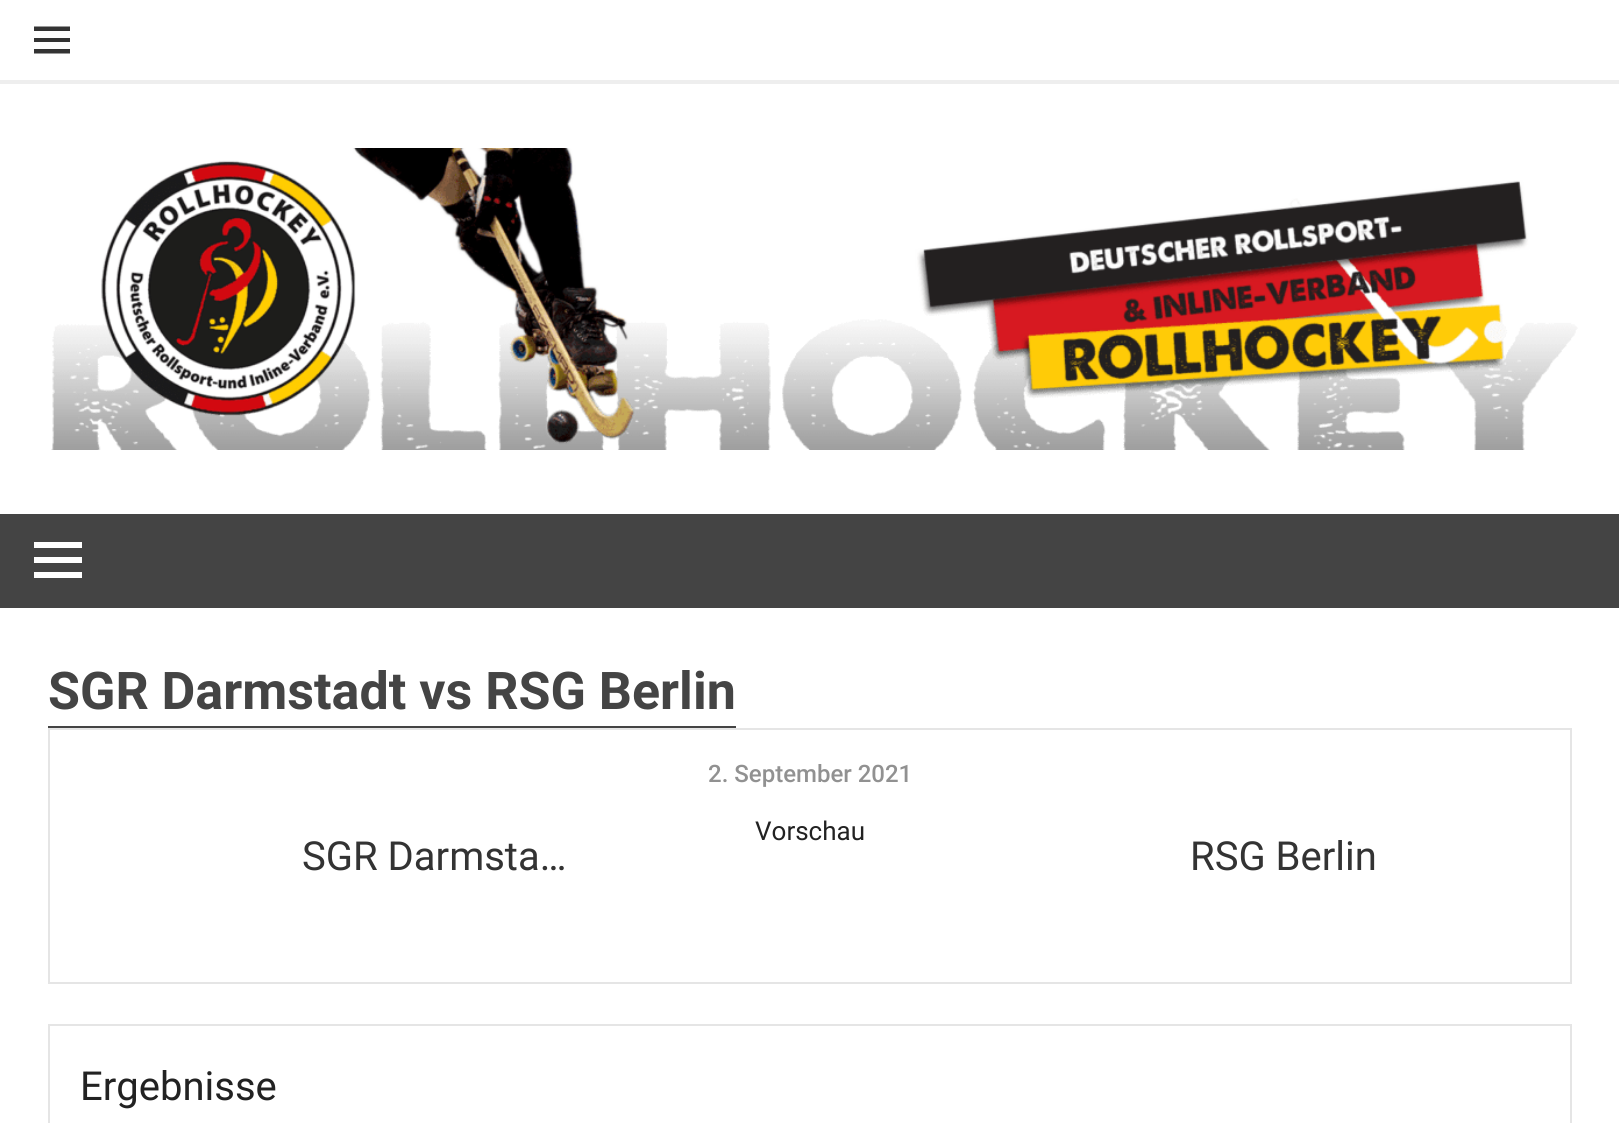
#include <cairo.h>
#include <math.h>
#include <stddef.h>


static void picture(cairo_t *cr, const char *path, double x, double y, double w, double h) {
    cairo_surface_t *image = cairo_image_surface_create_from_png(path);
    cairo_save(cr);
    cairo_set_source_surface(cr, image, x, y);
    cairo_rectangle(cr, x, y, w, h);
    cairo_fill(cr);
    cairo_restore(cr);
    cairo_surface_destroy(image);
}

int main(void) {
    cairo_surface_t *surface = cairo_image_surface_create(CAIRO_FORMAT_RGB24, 1619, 1123);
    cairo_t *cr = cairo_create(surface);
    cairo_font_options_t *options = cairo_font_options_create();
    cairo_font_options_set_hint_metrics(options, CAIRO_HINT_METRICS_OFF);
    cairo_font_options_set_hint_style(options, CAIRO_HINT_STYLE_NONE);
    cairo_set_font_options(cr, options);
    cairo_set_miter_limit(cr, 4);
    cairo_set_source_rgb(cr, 1, 1, 1);
    cairo_paint(cr);
    cairo_set_source_rgb(cr, 0.933, 0.933, 0.933);
    cairo_rectangle(cr, 0, 80, 1619, 4);
    cairo_fill(cr);
    cairo_set_source_rgb(cr, 0.2, 0.2, 0.2);
    cairo_new_path(cr);
    cairo_move_to(cr, 34, 53.5);
    cairo_line_to(cr, 34, 49);
    cairo_line_to(cr, 70, 49);
    cairo_line_to(cr, 70, 53.5);
    cairo_close_path(cr);
    cairo_move_to(cr, 34, 26.5);
    cairo_line_to(cr, 70, 26.5);
    cairo_line_to(cr, 70, 31);
    cairo_line_to(cr, 34, 31);
    cairo_close_path(cr);
    cairo_move_to(cr, 34, 42);
    cairo_line_to(cr, 34, 38);
    cairo_line_to(cr, 70, 38);
    cairo_line_to(cr, 70, 42);
    cairo_close_path(cr);
    cairo_fill(cr);
    picture(cr, "img1.png", 51, 148, 1527, 302);
    cairo_set_source_rgb(cr, 0.267, 0.267, 0.267);
    cairo_rectangle(cr, 0, 514, 1619, 94);
    cairo_fill(cr);
    cairo_set_source_rgb(cr, 1, 1, 1);
    cairo_new_path(cr);
    cairo_move_to(cr, 34, 578);
    cairo_line_to(cr, 34, 572);
    cairo_line_to(cr, 82, 572);
    cairo_line_to(cr, 82, 578);
    cairo_close_path(cr);
    cairo_move_to(cr, 34, 542);
    cairo_line_to(cr, 82, 542);
    cairo_line_to(cr, 82, 548);
    cairo_line_to(cr, 34, 548);
    cairo_close_path(cr);
    cairo_move_to(cr, 34, 563);
    cairo_line_to(cr, 34, 557);
    cairo_line_to(cr, 82, 557);
    cairo_line_to(cr, 82, 563);
    cairo_close_path(cr);
    cairo_fill(cr);
    cairo_select_font_face(cr, "Roboto", CAIRO_FONT_SLANT_NORMAL, CAIRO_FONT_WEIGHT_BOLD);
    cairo_set_font_size(cr, 52);
    cairo_set_source_rgb(cr, 0.267, 0.267, 0.267);
    cairo_move_to(cr, 48, 709);
    cairo_show_text(cr, "SGR Darmstadt vs RSG Berlin");
    cairo_rectangle(cr, 48, 726, 688, 2);
    cairo_fill(cr);
    cairo_set_source_rgb(cr, 0.898, 0.898, 0.898);
    cairo_rectangle(cr, 48, 728, 1524, 2);
    cairo_fill(cr);
    cairo_rectangle(cr, 1570, 728, 2, 256);
    cairo_fill(cr);
    cairo_rectangle(cr, 48, 982, 1524, 2);
    cairo_fill(cr);
    cairo_rectangle(cr, 48, 728, 2, 256);
    cairo_fill(cr);
    cairo_select_font_face(cr, "Roboto Medium", CAIRO_FONT_SLANT_NORMAL, CAIRO_FONT_WEIGHT_NORMAL);
    cairo_set_font_size(cr, 24);
    cairo_set_source_rgb(cr, 0.569, 0.569, 0.569);
    cairo_move_to(cr, 708, 782);
    cairo_show_text(cr, "2. September 2021");
    cairo_select_font_face(cr, "Roboto", CAIRO_FONT_SLANT_NORMAL, CAIRO_FONT_WEIGHT_NORMAL);
    cairo_set_font_size(cr, 26);
    cairo_set_source_rgb(cr, 0.133, 0.133, 0.133);
    cairo_move_to(cr, 755, 840);
    cairo_show_text(cr, "Vorschau");
    cairo_set_font_size(cr, 40);
    cairo_set_source_rgb(cr, 0.2, 0.2, 0.2);
    cairo_move_to(cr, 302, 870);
    cairo_show_text(cr, "SGR Darmsta…");
    cairo_move_to(cr, 1190, 870);
    cairo_show_text(cr, "RSG Berlin");
    cairo_set_source_rgb(cr, 0.898, 0.898, 0.898);
    cairo_rectangle(cr, 48, 1024, 1524, 2);
    cairo_fill(cr);
    cairo_rectangle(cr, 1570, 1024, 2, 99);
    cairo_fill(cr);
    cairo_rectangle(cr, 48, 1024, 2, 99);
    cairo_fill(cr);
    cairo_set_source_rgb(cr, 0.133, 0.133, 0.133);
    cairo_move_to(cr, 80, 1100);
    cairo_show_text(cr, "Ergebnisse");
    cairo_surface_write_to_png(surface, "page.png");
    cairo_font_options_destroy(options);
    cairo_destroy(cr);
    cairo_surface_destroy(surface);
    return 0;
}
